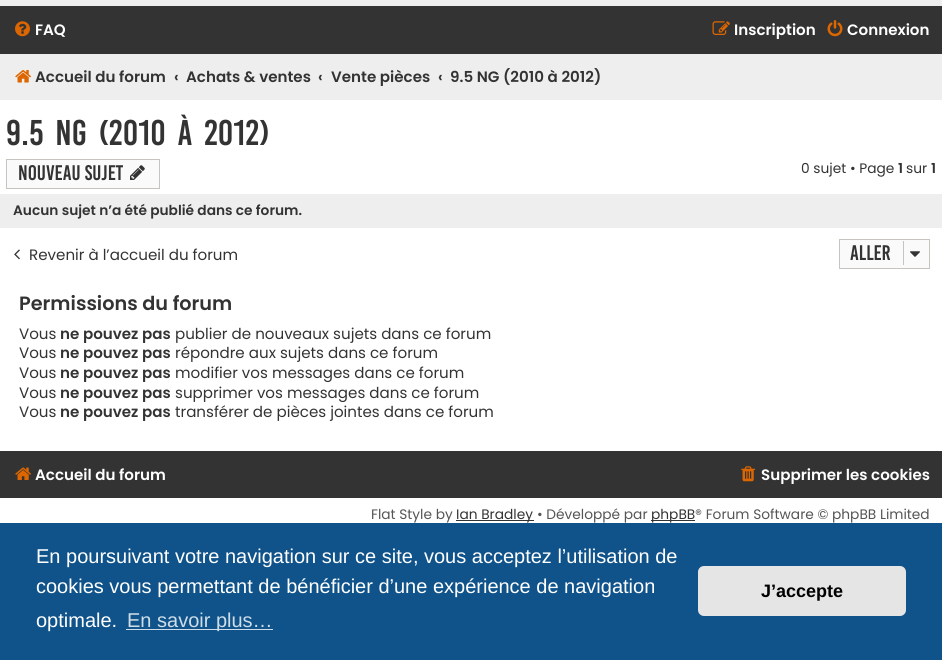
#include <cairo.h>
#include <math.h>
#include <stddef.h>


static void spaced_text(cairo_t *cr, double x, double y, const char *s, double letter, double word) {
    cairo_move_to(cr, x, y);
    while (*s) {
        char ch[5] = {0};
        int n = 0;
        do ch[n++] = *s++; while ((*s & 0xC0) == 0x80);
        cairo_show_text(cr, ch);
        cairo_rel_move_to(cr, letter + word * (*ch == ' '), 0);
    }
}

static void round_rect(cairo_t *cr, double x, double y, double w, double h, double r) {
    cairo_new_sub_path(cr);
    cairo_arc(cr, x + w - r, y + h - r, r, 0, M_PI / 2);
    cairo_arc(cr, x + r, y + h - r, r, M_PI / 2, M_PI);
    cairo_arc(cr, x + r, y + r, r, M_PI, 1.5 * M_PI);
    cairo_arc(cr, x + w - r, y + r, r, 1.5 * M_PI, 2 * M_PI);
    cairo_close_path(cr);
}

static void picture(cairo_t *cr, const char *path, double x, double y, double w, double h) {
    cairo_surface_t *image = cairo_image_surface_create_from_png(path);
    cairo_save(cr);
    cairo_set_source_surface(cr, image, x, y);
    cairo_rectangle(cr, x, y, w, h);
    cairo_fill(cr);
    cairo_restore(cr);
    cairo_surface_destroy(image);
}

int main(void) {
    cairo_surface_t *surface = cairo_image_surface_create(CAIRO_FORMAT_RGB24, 942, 660);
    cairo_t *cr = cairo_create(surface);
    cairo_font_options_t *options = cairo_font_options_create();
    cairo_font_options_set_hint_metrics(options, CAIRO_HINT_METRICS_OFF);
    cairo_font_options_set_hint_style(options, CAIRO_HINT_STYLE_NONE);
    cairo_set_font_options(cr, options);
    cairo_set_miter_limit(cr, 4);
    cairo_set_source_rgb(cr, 1, 1, 1);
    cairo_paint(cr);
    cairo_set_source_rgb(cr, 0.933, 0.933, 0.933);
    cairo_rectangle(cr, 0, 0, 942, 6);
    cairo_fill(cr);
    cairo_set_source_rgb(cr, 0.2, 0.2, 0.2);
    cairo_rectangle(cr, 0, 6, 942, 48);
    cairo_fill(cr);
    picture(cr, "img1.png", 15, 21, 15, 16);
    cairo_select_font_face(cr, "Poppins SemiBold", CAIRO_FONT_SLANT_NORMAL, CAIRO_FONT_WEIGHT_NORMAL);
    cairo_set_font_size(cr, 15.1);
    cairo_set_source_rgb(cr, 1, 1, 1);
    cairo_move_to(cr, 35, 35);
    cairo_show_text(cr, "FAQ");
    picture(cr, "img2.png", 712, 21, 18, 14);
    cairo_move_to(cr, 734, 35);
    cairo_show_text(cr, "Inscription");
    picture(cr, "img3.png", 827, 20, 16, 17);
    cairo_move_to(cr, 847, 35);
    cairo_show_text(cr, "Connexion");
    cairo_set_source_rgb(cr, 0.933, 0.933, 0.933);
    cairo_rectangle(cr, 0, 54, 942, 46);
    cairo_fill(cr);
    picture(cr, "img4.png", 15, 70, 16, 13);
    cairo_set_source_rgb(cr, 0.2, 0.2, 0.2);
    cairo_move_to(cr, 35, 82);
    cairo_show_text(cr, "Accueil du forum");
    cairo_move_to(cr, 174, 82);
    cairo_show_text(cr, "‹");
    cairo_move_to(cr, 186, 82);
    cairo_show_text(cr, "Achats & ventes");
    cairo_move_to(cr, 318, 82);
    cairo_show_text(cr, "‹");
    cairo_move_to(cr, 331, 82);
    cairo_show_text(cr, "Vente pièces");
    cairo_move_to(cr, 438, 82);
    cairo_show_text(cr, "‹");
    cairo_move_to(cr, 450, 82);
    cairo_show_text(cr, "9.5 NG (2010 à 2012)");
    cairo_select_font_face(cr, "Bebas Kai", CAIRO_FONT_SLANT_NORMAL, CAIRO_FONT_WEIGHT_NORMAL);
    cairo_set_font_size(cr, 27.5);
    spaced_text(cr, 6, 145, "9.5 NG (2010 à 2012)", 0, 5);
    cairo_set_source_rgb(cr, 0.98, 0.98, 0.98);
    cairo_rectangle(cr, 6.5, 159.5, 153, 29);
    cairo_fill_preserve(cr);
    cairo_set_source_rgb(cr, 0.78, 0.765, 0.749);
    cairo_set_line_width(cr, 1);
    cairo_stroke(cr);
    cairo_set_font_size(cr, 16.25);
    cairo_set_source_rgb(cr, 0.2, 0.2, 0.2);
    cairo_move_to(cr, 18, 180);
    cairo_show_text(cr, "Nouveau sujet");
    picture(cr, "img5.png", 130, 165, 15, 15);
    cairo_select_font_face(cr, "Poppins", CAIRO_FONT_SLANT_NORMAL, CAIRO_FONT_WEIGHT_NORMAL);
    cairo_set_font_size(cr, 13.75);
    cairo_move_to(cr, 801, 173);
    cairo_show_text(cr, "0 sujet • Page");
    cairo_select_font_face(cr, "Poppins SemiBold", CAIRO_FONT_SLANT_NORMAL, CAIRO_FONT_WEIGHT_NORMAL);
    cairo_move_to(cr, 898, 173);
    cairo_show_text(cr, "1");
    cairo_select_font_face(cr, "Poppins", CAIRO_FONT_SLANT_NORMAL, CAIRO_FONT_WEIGHT_NORMAL);
    cairo_move_to(cr, 906, 173);
    cairo_show_text(cr, "sur");
    cairo_select_font_face(cr, "Poppins SemiBold", CAIRO_FONT_SLANT_NORMAL, CAIRO_FONT_WEIGHT_NORMAL);
    cairo_move_to(cr, 931, 173);
    cairo_show_text(cr, "1");
    cairo_set_source_rgb(cr, 0.933, 0.933, 0.933);
    cairo_rectangle(cr, 0, 194, 942, 34);
    cairo_fill(cr);
    cairo_set_source_rgb(cr, 0.2, 0.2, 0.2);
    cairo_move_to(cr, 13, 215);
    cairo_show_text(cr, "Aucun sujet n’a été publié dans ce forum.");
    picture(cr, "img6.png", 14, 249, 6, 11);
    cairo_select_font_face(cr, "Poppins", CAIRO_FONT_SLANT_NORMAL, CAIRO_FONT_WEIGHT_NORMAL);
    cairo_set_font_size(cr, 15.1);
    cairo_move_to(cr, 29, 260);
    cairo_show_text(cr, "Revenir à l’accueil du forum");
    cairo_set_source_rgb(cr, 0.98, 0.98, 0.98);
    cairo_rectangle(cr, 839.5, 239.5, 90, 29);
    cairo_fill_preserve(cr);
    cairo_set_source_rgb(cr, 0.78, 0.765, 0.749);
    cairo_stroke(cr);
    cairo_select_font_face(cr, "Bebas Kai", CAIRO_FONT_SLANT_NORMAL, CAIRO_FONT_WEIGHT_NORMAL);
    cairo_set_font_size(cr, 16.25);
    cairo_set_source_rgb(cr, 0.2, 0.2, 0.2);
    cairo_move_to(cr, 850, 260);
    cairo_show_text(cr, "Aller");
    cairo_set_source_rgb(cr, 0.78, 0.765, 0.749);
    cairo_rectangle(cr, 903, 241, 1, 24);
    cairo_fill(cr);
    picture(cr, "img7.png", 910, 251, 10, 6);
    cairo_select_font_face(cr, "Poppins SemiBold", CAIRO_FONT_SLANT_NORMAL, CAIRO_FONT_WEIGHT_NORMAL);
    cairo_set_font_size(cr, 19.25);
    cairo_set_source_rgb(cr, 0.2, 0.2, 0.2);
    cairo_move_to(cr, 19, 310);
    cairo_show_text(cr, "Permissions du forum");
    cairo_select_font_face(cr, "Poppins", CAIRO_FONT_SLANT_NORMAL, CAIRO_FONT_WEIGHT_NORMAL);
    cairo_set_font_size(cr, 15.1);
    cairo_move_to(cr, 19, 339);
    cairo_show_text(cr, "Vous");
    cairo_select_font_face(cr, "Poppins SemiBold", CAIRO_FONT_SLANT_NORMAL, CAIRO_FONT_WEIGHT_NORMAL);
    cairo_move_to(cr, 60, 339);
    cairo_show_text(cr, "ne pouvez pas");
    cairo_select_font_face(cr, "Poppins", CAIRO_FONT_SLANT_NORMAL, CAIRO_FONT_WEIGHT_NORMAL);
    cairo_move_to(cr, 175, 339);
    cairo_show_text(cr, "publier de nouveaux sujets dans ce forum");
    cairo_move_to(cr, 19, 358);
    cairo_show_text(cr, "Vous");
    cairo_select_font_face(cr, "Poppins SemiBold", CAIRO_FONT_SLANT_NORMAL, CAIRO_FONT_WEIGHT_NORMAL);
    cairo_move_to(cr, 60, 358);
    cairo_show_text(cr, "ne pouvez pas");
    cairo_select_font_face(cr, "Poppins", CAIRO_FONT_SLANT_NORMAL, CAIRO_FONT_WEIGHT_NORMAL);
    cairo_move_to(cr, 175, 358);
    cairo_show_text(cr, "répondre aux sujets dans ce forum");
    cairo_move_to(cr, 19, 378);
    cairo_show_text(cr, "Vous");
    cairo_select_font_face(cr, "Poppins SemiBold", CAIRO_FONT_SLANT_NORMAL, CAIRO_FONT_WEIGHT_NORMAL);
    cairo_move_to(cr, 60, 378);
    cairo_show_text(cr, "ne pouvez pas");
    cairo_select_font_face(cr, "Poppins", CAIRO_FONT_SLANT_NORMAL, CAIRO_FONT_WEIGHT_NORMAL);
    cairo_move_to(cr, 175, 378);
    cairo_show_text(cr, "modifier vos messages dans ce forum");
    cairo_move_to(cr, 19, 398);
    cairo_show_text(cr, "Vous");
    cairo_select_font_face(cr, "Poppins SemiBold", CAIRO_FONT_SLANT_NORMAL, CAIRO_FONT_WEIGHT_NORMAL);
    cairo_move_to(cr, 60, 398);
    cairo_show_text(cr, "ne pouvez pas");
    cairo_select_font_face(cr, "Poppins", CAIRO_FONT_SLANT_NORMAL, CAIRO_FONT_WEIGHT_NORMAL);
    cairo_move_to(cr, 175, 398);
    cairo_show_text(cr, "supprimer vos messages dans ce forum");
    cairo_move_to(cr, 19, 417);
    cairo_show_text(cr, "Vous");
    cairo_select_font_face(cr, "Poppins SemiBold", CAIRO_FONT_SLANT_NORMAL, CAIRO_FONT_WEIGHT_NORMAL);
    cairo_move_to(cr, 60, 417);
    cairo_show_text(cr, "ne pouvez pas");
    cairo_select_font_face(cr, "Poppins", CAIRO_FONT_SLANT_NORMAL, CAIRO_FONT_WEIGHT_NORMAL);
    cairo_move_to(cr, 175, 417);
    cairo_show_text(cr, "transférer de pièces jointes dans ce forum");
    cairo_rectangle(cr, 0, 451, 942, 47);
    cairo_fill(cr);
    picture(cr, "img8.png", 15, 467, 16, 13);
    cairo_select_font_face(cr, "Poppins SemiBold", CAIRO_FONT_SLANT_NORMAL, CAIRO_FONT_WEIGHT_NORMAL);
    cairo_set_source_rgb(cr, 1, 1, 1);
    cairo_move_to(cr, 35, 480);
    cairo_show_text(cr, "Accueil du forum");
    picture(cr, "img9.png", 741, 466, 14, 16);
    cairo_move_to(cr, 761, 480);
    cairo_show_text(cr, "Supprimer les cookies");
    cairo_select_font_face(cr, "Poppins", CAIRO_FONT_SLANT_NORMAL, CAIRO_FONT_WEIGHT_NORMAL);
    cairo_set_font_size(cr, 13.75);
    cairo_set_source_rgb(cr, 0.333, 0.333, 0.333);
    cairo_move_to(cr, 371, 519);
    cairo_show_text(cr, "Flat Style by");
    cairo_set_source_rgb(cr, 0.2, 0.2, 0.2);
    cairo_rectangle(cr, 456, 520, 78, 1);
    cairo_fill(cr);
    cairo_move_to(cr, 456, 519);
    cairo_show_text(cr, "Ian Bradley");
    cairo_set_source_rgb(cr, 0.333, 0.333, 0.333);
    cairo_move_to(cr, 537, 519);
    cairo_show_text(cr, "• Développé par");
    cairo_set_source_rgb(cr, 0.2, 0.2, 0.2);
    cairo_rectangle(cr, 651, 520, 44, 1);
    cairo_fill(cr);
    cairo_move_to(cr, 651, 519);
    cairo_show_text(cr, "phpBB");
    cairo_set_source_rgb(cr, 0.333, 0.333, 0.333);
    cairo_move_to(cr, 695, 519);
    cairo_show_text(cr, "® Forum Software © phpBB Limited");
    cairo_set_source_rgb(cr, 0.059, 0.325, 0.541);
    cairo_rectangle(cr, 0, 523, 942, 137);
    cairo_fill(cr);
    cairo_select_font_face(cr, "Liberation Sans", CAIRO_FONT_SLANT_NORMAL, CAIRO_FONT_WEIGHT_NORMAL);
    cairo_set_font_size(cr, 20);
    cairo_set_source_rgb(cr, 1, 1, 1);
    cairo_move_to(cr, 36, 563);
    cairo_show_text(cr, "En poursuivant votre navigation sur ce site, vous acceptez l’utilisation de");
    cairo_move_to(cr, 36, 593);
    cairo_show_text(cr, "cookies vous permettant de bénéficier d’une expérience de navigation");
    cairo_move_to(cr, 36, 627);
    cairo_show_text(cr, "optimale.");
    cairo_set_source_rgb(cr, 0.812, 0.867, 0.91);
    cairo_rectangle(cr, 126, 629, 147, 1);
    cairo_fill(cr);
    cairo_move_to(cr, 127, 627);
    cairo_show_text(cr, "En savoir plus…");
    cairo_set_source_rgb(cr, 0.898, 0.898, 0.898);
    round_rect(cr, 698, 566, 208, 50, 6);
    cairo_fill(cr);
    cairo_select_font_face(cr, "Liberation Sans", CAIRO_FONT_SLANT_NORMAL, CAIRO_FONT_WEIGHT_BOLD);
    cairo_set_font_size(cr, 18);
    cairo_set_source_rgb(cr, 0, 0, 0);
    cairo_move_to(cr, 761, 597);
    cairo_show_text(cr, "J’accepte");
    cairo_surface_write_to_png(surface, "page.png");
    cairo_font_options_destroy(options);
    cairo_destroy(cr);
    cairo_surface_destroy(surface);
    return 0;
}
